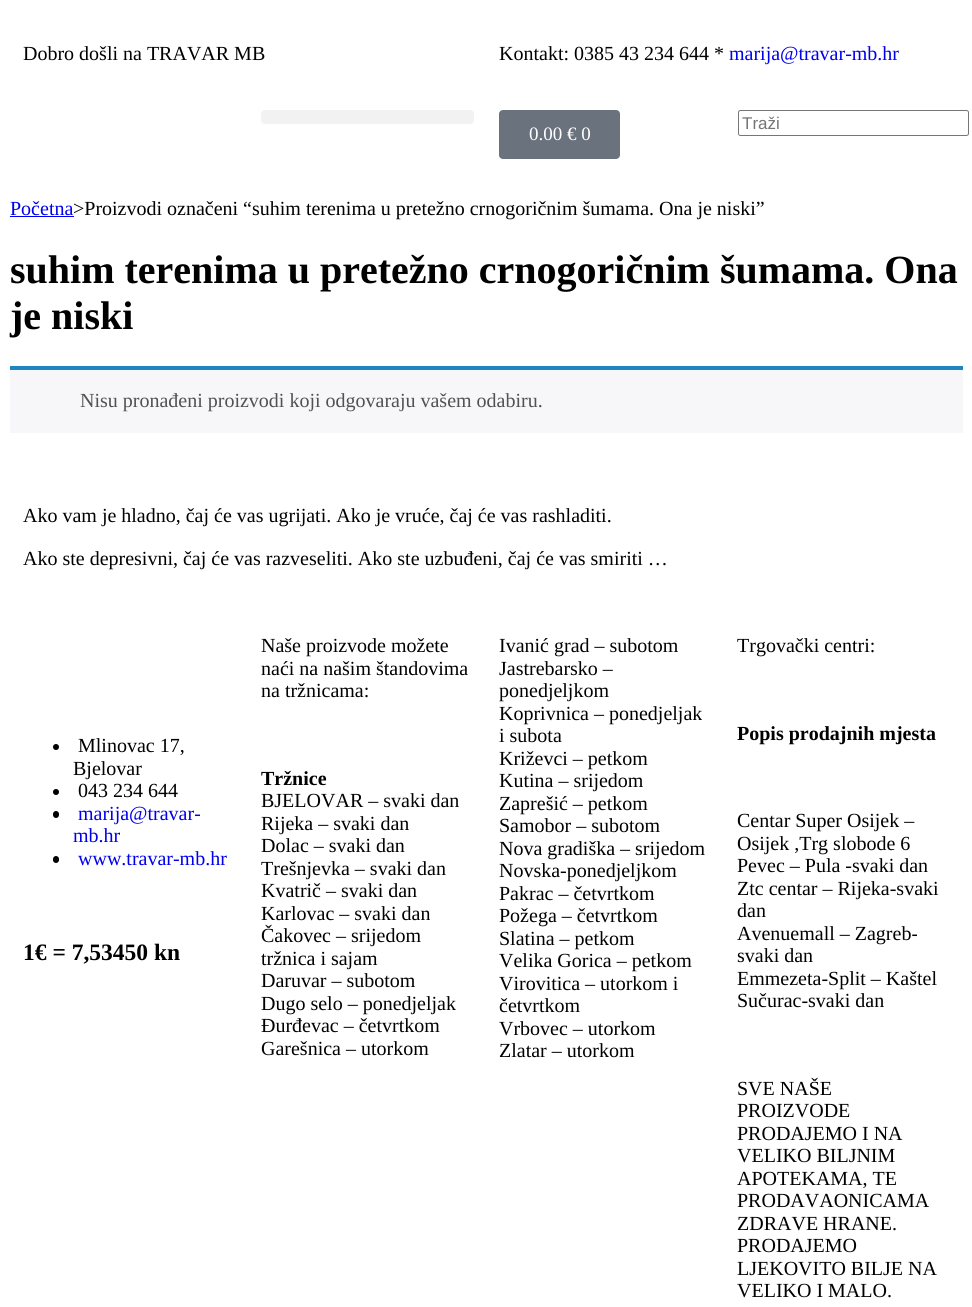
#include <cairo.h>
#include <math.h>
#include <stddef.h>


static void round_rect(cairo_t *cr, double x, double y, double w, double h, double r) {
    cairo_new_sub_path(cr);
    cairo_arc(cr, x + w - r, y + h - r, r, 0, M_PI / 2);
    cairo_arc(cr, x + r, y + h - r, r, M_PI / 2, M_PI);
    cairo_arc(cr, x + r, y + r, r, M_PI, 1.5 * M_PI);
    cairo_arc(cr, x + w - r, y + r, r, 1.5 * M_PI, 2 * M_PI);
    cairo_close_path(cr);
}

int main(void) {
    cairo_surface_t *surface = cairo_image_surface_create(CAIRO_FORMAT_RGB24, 972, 1307);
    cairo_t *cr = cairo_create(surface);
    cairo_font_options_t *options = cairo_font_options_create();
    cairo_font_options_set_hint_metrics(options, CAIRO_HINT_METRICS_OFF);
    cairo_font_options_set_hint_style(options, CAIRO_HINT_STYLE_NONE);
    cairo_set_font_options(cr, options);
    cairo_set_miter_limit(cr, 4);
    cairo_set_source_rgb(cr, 1, 1, 1);
    cairo_paint(cr);
    cairo_select_font_face(cr, "Liberation Serif", CAIRO_FONT_SLANT_NORMAL, CAIRO_FONT_WEIGHT_NORMAL);
    cairo_set_font_size(cr, 20);
    cairo_set_source_rgb(cr, 0, 0, 0);
    cairo_move_to(cr, 23, 60);
    cairo_show_text(cr, "Dobro došli na TRAVAR MB");
    cairo_move_to(cr, 499, 60);
    cairo_show_text(cr, "Kontakt: 0385 43 234 644 *");
    cairo_set_source_rgb(cr, 0, 0, 0.933);
    cairo_move_to(cr, 729, 60);
    cairo_show_text(cr, "marija@travar-mb.hr");
    cairo_set_source_rgb(cr, 0.949, 0.949, 0.949);
    round_rect(cr, 261, 110, 213, 14, 4);
    cairo_fill(cr);
    round_rect(cr, 738.5, 110.5, 230, 25, 2);
    cairo_set_source_rgb(cr, 0.463, 0.463, 0.463);
    cairo_set_line_width(cr, 1);
    cairo_stroke(cr);
    cairo_select_font_face(cr, "Liberation Sans", CAIRO_FONT_SLANT_NORMAL, CAIRO_FONT_WEIGHT_NORMAL);
    cairo_set_font_size(cr, 17);
    cairo_set_source_rgb(cr, 0.459, 0.459, 0.459);
    cairo_move_to(cr, 742, 129);
    cairo_show_text(cr, "Traži");
    cairo_set_source_rgb(cr, 0.412, 0.447, 0.49);
    round_rect(cr, 499, 110, 121, 49, 4);
    cairo_fill(cr);
    cairo_select_font_face(cr, "Liberation Serif", CAIRO_FONT_SLANT_NORMAL, CAIRO_FONT_WEIGHT_NORMAL);
    cairo_set_font_size(cr, 19);
    cairo_set_source_rgb(cr, 1, 1, 1);
    cairo_move_to(cr, 529, 140);
    cairo_show_text(cr, "0.00 € 0");
    cairo_set_font_size(cr, 20);
    cairo_set_source_rgb(cr, 0, 0, 0.933);
    cairo_move_to(cr, 10, 215);
    cairo_show_text(cr, "Početna");
    cairo_rectangle(cr, 10, 216, 64, 1);
    cairo_fill(cr);
    cairo_set_source_rgb(cr, 0, 0, 0);
    cairo_move_to(cr, 73, 215);
    cairo_show_text(cr, ">Proizvodi označeni “suhim terenima u pretežno crnogoričnim šumama. Ona je niski”");
    cairo_select_font_face(cr, "Liberation Serif", CAIRO_FONT_SLANT_NORMAL, CAIRO_FONT_WEIGHT_BOLD);
    cairo_set_font_size(cr, 40);
    cairo_move_to(cr, 10, 283);
    cairo_show_text(cr, "suhim terenima u pretežno crnogoričnim šumama. Ona");
    cairo_move_to(cr, 10, 329);
    cairo_show_text(cr, "je niski");
    cairo_set_source_rgb(cr, 0.965, 0.961, 0.973);
    cairo_rectangle(cr, 10, 370, 953, 63);
    cairo_fill(cr);
    cairo_set_source_rgb(cr, 0.118, 0.522, 0.745);
    cairo_rectangle(cr, 10, 366, 953, 4);
    cairo_fill(cr);
    cairo_select_font_face(cr, "Liberation Serif", CAIRO_FONT_SLANT_NORMAL, CAIRO_FONT_WEIGHT_NORMAL);
    cairo_set_font_size(cr, 20);
    cairo_set_source_rgb(cr, 0.318, 0.318, 0.318);
    cairo_move_to(cr, 80, 407);
    cairo_show_text(cr, "Nisu pronađeni proizvodi koji odgovaraju vašem odabiru.");
    cairo_set_source_rgb(cr, 0, 0, 0);
    cairo_move_to(cr, 23, 522);
    cairo_show_text(cr, "Ako vam je hladno, čaj će vas ugrijati. Ako je vruće, čaj će vas rashladiti.");
    cairo_move_to(cr, 23, 565);
    cairo_show_text(cr, "Ako ste depresivni, čaj će vas razveseliti. Ako ste uzbuđeni, čaj će vas smiriti …");
    cairo_new_path(cr);
    cairo_arc(cr, 56, 747, 3, 0, 2 * M_PI);
    cairo_fill(cr);
    cairo_move_to(cr, 78, 752);
    cairo_show_text(cr, "Mlinovac 17,");
    cairo_move_to(cr, 73, 775);
    cairo_show_text(cr, "Bjelovar");
    cairo_new_path(cr);
    cairo_arc(cr, 56, 792, 3, 0, 2 * M_PI);
    cairo_fill(cr);
    cairo_move_to(cr, 78, 797);
    cairo_show_text(cr, "043 234 644");
    round_rect(cr, 53, 811, 6, 7, 3);
    cairo_fill(cr);
    cairo_set_source_rgb(cr, 0, 0, 0.933);
    cairo_move_to(cr, 78, 820);
    cairo_show_text(cr, "marija@travar-");
    cairo_move_to(cr, 73, 842);
    cairo_show_text(cr, "mb.hr");
    cairo_set_source_rgb(cr, 0, 0, 0);
    round_rect(cr, 53, 856, 6, 7, 3);
    cairo_fill(cr);
    cairo_set_source_rgb(cr, 0, 0, 0.933);
    cairo_move_to(cr, 78, 865);
    cairo_show_text(cr, "www.travar-mb.hr");
    cairo_select_font_face(cr, "Liberation Serif", CAIRO_FONT_SLANT_NORMAL, CAIRO_FONT_WEIGHT_BOLD);
    cairo_set_font_size(cr, 23.5);
    cairo_set_source_rgb(cr, 0, 0, 0);
    cairo_move_to(cr, 23, 960);
    cairo_show_text(cr, "1€ = 7,53450 kn");
    cairo_select_font_face(cr, "Liberation Serif", CAIRO_FONT_SLANT_NORMAL, CAIRO_FONT_WEIGHT_NORMAL);
    cairo_set_font_size(cr, 20);
    cairo_move_to(cr, 261, 652);
    cairo_show_text(cr, "Naše proizvode možete");
    cairo_move_to(cr, 261, 675);
    cairo_show_text(cr, "naći na našim štandovima");
    cairo_move_to(cr, 261, 697);
    cairo_show_text(cr, "na tržnicama:");
    cairo_select_font_face(cr, "Liberation Serif", CAIRO_FONT_SLANT_NORMAL, CAIRO_FONT_WEIGHT_BOLD);
    cairo_move_to(cr, 261, 785);
    cairo_show_text(cr, "Tržnice");
    cairo_select_font_face(cr, "Liberation Serif", CAIRO_FONT_SLANT_NORMAL, CAIRO_FONT_WEIGHT_NORMAL);
    cairo_move_to(cr, 261, 807);
    cairo_show_text(cr, "BJELOVAR – svaki dan");
    cairo_move_to(cr, 261, 830);
    cairo_show_text(cr, "Rijeka – svaki dan");
    cairo_move_to(cr, 261, 852);
    cairo_show_text(cr, "Dolac – svaki dan");
    cairo_move_to(cr, 261, 875);
    cairo_show_text(cr, "Trešnjevka – svaki dan");
    cairo_move_to(cr, 261, 897);
    cairo_show_text(cr, "Kvatrič – svaki dan");
    cairo_move_to(cr, 261, 920);
    cairo_show_text(cr, "Karlovac – svaki dan");
    cairo_move_to(cr, 261, 942);
    cairo_show_text(cr, "Čakovec – srijedom");
    cairo_move_to(cr, 261, 965);
    cairo_show_text(cr, "tržnica i sajam");
    cairo_move_to(cr, 261, 987);
    cairo_show_text(cr, "Daruvar – subotom");
    cairo_move_to(cr, 261, 1010);
    cairo_show_text(cr, "Dugo selo – ponedjeljak");
    cairo_move_to(cr, 261, 1032);
    cairo_show_text(cr, "Đurđevac – četvrtkom");
    cairo_move_to(cr, 261, 1055);
    cairo_show_text(cr, "Garešnica – utorkom");
    cairo_move_to(cr, 499, 652);
    cairo_show_text(cr, "Ivanić grad – subotom");
    cairo_move_to(cr, 499, 675);
    cairo_show_text(cr, "Jastrebarsko –");
    cairo_move_to(cr, 499, 697);
    cairo_show_text(cr, "ponedjeljkom");
    cairo_move_to(cr, 499, 720);
    cairo_show_text(cr, "Koprivnica – ponedjeljak");
    cairo_move_to(cr, 499, 742);
    cairo_show_text(cr, "i subota");
    cairo_move_to(cr, 499, 765);
    cairo_show_text(cr, "Križevci – petkom");
    cairo_move_to(cr, 499, 787);
    cairo_show_text(cr, "Kutina – srijedom");
    cairo_move_to(cr, 499, 810);
    cairo_show_text(cr, "Zaprešić – petkom");
    cairo_move_to(cr, 499, 832);
    cairo_show_text(cr, "Samobor – subotom");
    cairo_move_to(cr, 499, 855);
    cairo_show_text(cr, "Nova gradiška – srijedom");
    cairo_move_to(cr, 499, 877);
    cairo_show_text(cr, "Novska-ponedjeljkom");
    cairo_move_to(cr, 499, 900);
    cairo_show_text(cr, "Pakrac – četvrtkom");
    cairo_move_to(cr, 499, 922);
    cairo_show_text(cr, "Požega – četvrtkom");
    cairo_move_to(cr, 499, 945);
    cairo_show_text(cr, "Slatina – petkom");
    cairo_move_to(cr, 499, 967);
    cairo_show_text(cr, "Velika Gorica – petkom");
    cairo_move_to(cr, 499, 990);
    cairo_show_text(cr, "Virovitica – utorkom i");
    cairo_move_to(cr, 499, 1012);
    cairo_show_text(cr, "četvrtkom");
    cairo_move_to(cr, 499, 1035);
    cairo_show_text(cr, "Vrbovec – utorkom");
    cairo_move_to(cr, 499, 1057);
    cairo_show_text(cr, "Zlatar – utorkom");
    cairo_move_to(cr, 737, 652);
    cairo_show_text(cr, "Trgovački centri:");
    cairo_select_font_face(cr, "Liberation Serif", CAIRO_FONT_SLANT_NORMAL, CAIRO_FONT_WEIGHT_BOLD);
    cairo_move_to(cr, 737, 740);
    cairo_show_text(cr, "Popis prodajnih mjesta");
    cairo_select_font_face(cr, "Liberation Serif", CAIRO_FONT_SLANT_NORMAL, CAIRO_FONT_WEIGHT_NORMAL);
    cairo_move_to(cr, 737, 827);
    cairo_show_text(cr, "Centar Super Osijek –");
    cairo_move_to(cr, 737, 850);
    cairo_show_text(cr, "Osijek ,Trg slobode 6");
    cairo_move_to(cr, 737, 872);
    cairo_show_text(cr, "Pevec – Pula -svaki dan");
    cairo_move_to(cr, 737, 895);
    cairo_show_text(cr, "Ztc centar – Rijeka-svaki");
    cairo_move_to(cr, 737, 917);
    cairo_show_text(cr, "dan");
    cairo_move_to(cr, 737, 940);
    cairo_show_text(cr, "Avenuemall – Zagreb-");
    cairo_move_to(cr, 737, 962);
    cairo_show_text(cr, "svaki dan");
    cairo_move_to(cr, 737, 985);
    cairo_show_text(cr, "Emmezeta-Split – Kaštel");
    cairo_move_to(cr, 737, 1007);
    cairo_show_text(cr, "Sučurac-svaki dan");
    cairo_move_to(cr, 737, 1095);
    cairo_show_text(cr, "SVE NAŠE");
    cairo_move_to(cr, 737, 1117);
    cairo_show_text(cr, "PROIZVODE");
    cairo_move_to(cr, 737, 1140);
    cairo_show_text(cr, "PRODAJEMO I NA");
    cairo_move_to(cr, 737, 1162);
    cairo_show_text(cr, "VELIKO BILJNIM");
    cairo_move_to(cr, 737, 1185);
    cairo_show_text(cr, "APOTEKAMA, TE");
    cairo_move_to(cr, 737, 1207);
    cairo_show_text(cr, "PRODAVAONICAMA");
    cairo_move_to(cr, 737, 1230);
    cairo_show_text(cr, "ZDRAVE HRANE.");
    cairo_move_to(cr, 737, 1252);
    cairo_show_text(cr, "PRODAJEMO");
    cairo_move_to(cr, 737, 1275);
    cairo_show_text(cr, "LJEKOVITO BILJE NA");
    cairo_move_to(cr, 737, 1297);
    cairo_show_text(cr, "VELIKO I MALO.");
    cairo_surface_write_to_png(surface, "page.png");
    cairo_font_options_destroy(options);
    cairo_destroy(cr);
    cairo_surface_destroy(surface);
    return 0;
}
